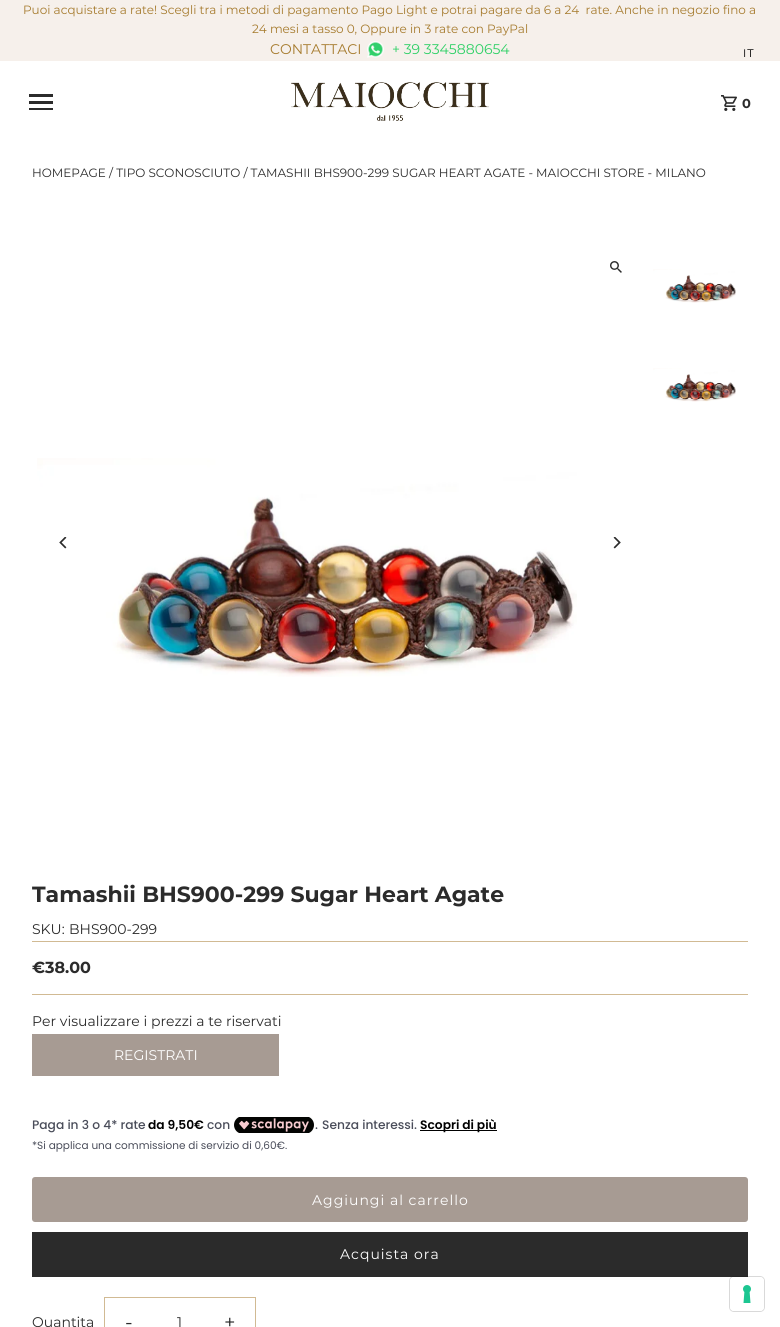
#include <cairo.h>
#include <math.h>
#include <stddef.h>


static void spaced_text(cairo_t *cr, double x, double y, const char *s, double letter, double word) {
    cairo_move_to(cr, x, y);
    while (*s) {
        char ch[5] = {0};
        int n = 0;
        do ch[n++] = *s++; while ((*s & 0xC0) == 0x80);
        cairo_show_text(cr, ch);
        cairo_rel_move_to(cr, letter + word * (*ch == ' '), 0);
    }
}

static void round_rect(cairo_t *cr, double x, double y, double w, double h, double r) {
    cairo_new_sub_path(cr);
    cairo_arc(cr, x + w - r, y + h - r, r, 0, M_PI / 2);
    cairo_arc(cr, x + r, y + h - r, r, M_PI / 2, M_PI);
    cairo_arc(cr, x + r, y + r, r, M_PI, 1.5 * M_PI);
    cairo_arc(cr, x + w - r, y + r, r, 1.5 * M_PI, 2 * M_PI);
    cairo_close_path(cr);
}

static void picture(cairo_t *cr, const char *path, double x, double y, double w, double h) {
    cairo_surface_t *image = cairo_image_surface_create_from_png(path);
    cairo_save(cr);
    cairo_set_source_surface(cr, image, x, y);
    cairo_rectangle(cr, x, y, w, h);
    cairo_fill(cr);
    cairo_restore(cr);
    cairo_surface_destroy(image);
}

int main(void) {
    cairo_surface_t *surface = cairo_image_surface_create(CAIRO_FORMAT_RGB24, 780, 1327);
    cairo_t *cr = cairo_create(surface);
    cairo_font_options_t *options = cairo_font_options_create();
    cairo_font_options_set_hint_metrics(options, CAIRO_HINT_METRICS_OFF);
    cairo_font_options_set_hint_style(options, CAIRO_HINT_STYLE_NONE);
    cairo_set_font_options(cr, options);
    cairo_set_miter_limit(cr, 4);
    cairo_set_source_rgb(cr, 1, 1, 1);
    cairo_paint(cr);
    cairo_set_source_rgb(cr, 0.961, 0.941, 0.918);
    cairo_rectangle(cr, 0, 0, 780, 61);
    cairo_fill(cr);
    cairo_select_font_face(cr, "Montserrat", CAIRO_FONT_SLANT_NORMAL, CAIRO_FONT_WEIGHT_NORMAL);
    cairo_set_font_size(cr, 12);
    cairo_set_source_rgb(cr, 0.651, 0.482, 0.18);
    cairo_move_to(cr, 23, 14);
    cairo_show_text(cr, "Puoi acquistare a rate! Scegli tra i metodi di pagamento Pago Light e potrai pagare da 6 a 24  rate. Anche in negozio fino a");
    cairo_move_to(cr, 252, 33);
    cairo_show_text(cr, "24 mesi a tasso 0, Oppure in 3 rate con PayPal");
    cairo_set_font_size(cr, 14);
    cairo_move_to(cr, 270, 54);
    cairo_show_text(cr, "CONTATTACI");
    picture(cr, "img1.png", 367, 41, 17, 17);
    cairo_set_source_rgb(cr, 0.18, 0.816, 0.4);
    cairo_move_to(cr, 392, 54);
    cairo_show_text(cr, "+ 39 3345880654");
    cairo_set_font_size(cr, 11);
    cairo_set_source_rgb(cr, 0, 0, 0);
    spaced_text(cr, 743, 57, "IT", 1, 0);
    cairo_set_source_rgb(cr, 0.169, 0.169, 0.169);
    cairo_rectangle(cr, 29, 108, 24, 2);
    cairo_fill(cr);
    cairo_rectangle(cr, 29, 101, 24, 3);
    cairo_fill(cr);
    cairo_rectangle(cr, 29, 94, 24, 3);
    cairo_fill(cr);
    picture(cr, "img2.png", 291, 82, 198, 39);
    picture(cr, "img3.png", 721, 95, 16, 16);
    cairo_select_font_face(cr, "Montserrat", CAIRO_FONT_SLANT_NORMAL, CAIRO_FONT_WEIGHT_BOLD);
    cairo_set_font_size(cr, 13);
    spaced_text(cr, 742, 108, "0", 1, 0);
    cairo_select_font_face(cr, "Montserrat", CAIRO_FONT_SLANT_NORMAL, CAIRO_FONT_WEIGHT_NORMAL);
    cairo_set_font_size(cr, 12);
    cairo_move_to(cr, 32, 177);
    cairo_show_text(cr, "HOMEPAGE / TIPO SCONOSCIUTO / TAMASHII BHS900-299 SUGAR HEART AGATE - MAIOCCHI STORE - MILANO");
    picture(cr, "img4.png", 610, 261, 12, 12);
    picture(cr, "img5.png", 37, 458, 540, 219);
    picture(cr, "img6.png", 59, 537, 8, 12);
    picture(cr, "img7.png", 613, 537, 8, 12);
    picture(cr, "img8.png", 653, 269, 83, 34);
    picture(cr, "img8.png", 653, 368, 83, 34);
    cairo_select_font_face(cr, "Montserrat", CAIRO_FONT_SLANT_NORMAL, CAIRO_FONT_WEIGHT_BOLD);
    cairo_set_font_size(cr, 22);
    cairo_move_to(cr, 32, 902);
    cairo_show_text(cr, "Tamashii BHS900-299 Sugar Heart Agate");
    cairo_select_font_face(cr, "Montserrat", CAIRO_FONT_SLANT_NORMAL, CAIRO_FONT_WEIGHT_NORMAL);
    cairo_set_font_size(cr, 14);
    cairo_move_to(cr, 32, 934);
    cairo_show_text(cr, "SKU:");
    cairo_move_to(cr, 69, 934);
    cairo_show_text(cr, "BHS900-299");
    cairo_set_source_rgb(cr, 0.82, 0.729, 0.576);
    cairo_rectangle(cr, 32, 941, 716, 1);
    cairo_fill(cr);
    cairo_rectangle(cr, 32, 994, 716, 1);
    cairo_fill(cr);
    cairo_select_font_face(cr, "Montserrat", CAIRO_FONT_SLANT_NORMAL, CAIRO_FONT_WEIGHT_BOLD);
    cairo_set_font_size(cr, 16);
    cairo_set_source_rgb(cr, 0.169, 0.169, 0.169);
    cairo_move_to(cr, 32, 973);
    cairo_show_text(cr, "€38.00");
    cairo_select_font_face(cr, "Montserrat", CAIRO_FONT_SLANT_NORMAL, CAIRO_FONT_WEIGHT_NORMAL);
    cairo_set_font_size(cr, 14);
    cairo_move_to(cr, 32, 1026);
    cairo_show_text(cr, "Per visualizzare i prezzi a te riservati");
    cairo_set_source_rgb(cr, 0.655, 0.608, 0.576);
    cairo_rectangle(cr, 32, 1034, 247, 42);
    cairo_fill(cr);
    cairo_set_source_rgb(cr, 1, 1, 1);
    cairo_move_to(cr, 114, 1060);
    cairo_show_text(cr, "REGISTRATI");
    cairo_select_font_face(cr, "Poppins Medium", CAIRO_FONT_SLANT_NORMAL, CAIRO_FONT_WEIGHT_NORMAL);
    cairo_set_font_size(cr, 12.25);
    cairo_set_source_rgb(cr, 0.29, 0.302, 0.353);
    cairo_move_to(cr, 32, 1129);
    cairo_show_text(cr, "Paga in 3 o 4* rate");
    cairo_select_font_face(cr, "Poppins SemiBold", CAIRO_FONT_SLANT_NORMAL, CAIRO_FONT_WEIGHT_NORMAL);
    cairo_set_source_rgb(cr, 0, 0, 0);
    cairo_move_to(cr, 148, 1129);
    cairo_show_text(cr, "da 9,50€");
    cairo_select_font_face(cr, "Poppins Medium", CAIRO_FONT_SLANT_NORMAL, CAIRO_FONT_WEIGHT_NORMAL);
    cairo_set_source_rgb(cr, 0.29, 0.302, 0.353);
    cairo_move_to(cr, 207, 1129);
    cairo_show_text(cr, "con");
    picture(cr, "img9.png", 234, 1117, 80, 16);
    cairo_move_to(cr, 315, 1129);
    cairo_show_text(cr, ".");
    cairo_move_to(cr, 322, 1129);
    cairo_show_text(cr, "Senza interessi.");
    cairo_set_source_rgb(cr, 0, 0, 0);
    cairo_rectangle(cr, 420, 1130, 77, 1);
    cairo_fill(cr);
    cairo_select_font_face(cr, "Poppins SemiBold", CAIRO_FONT_SLANT_NORMAL, CAIRO_FONT_WEIGHT_NORMAL);
    cairo_move_to(cr, 420, 1129);
    cairo_show_text(cr, "Scopri di più");
    cairo_select_font_face(cr, "Poppins", CAIRO_FONT_SLANT_NORMAL, CAIRO_FONT_WEIGHT_NORMAL);
    cairo_set_font_size(cr, 10.5);
    cairo_set_source_rgb(cr, 0.29, 0.302, 0.353);
    cairo_move_to(cr, 32, 1149);
    cairo_show_text(cr, "*Si applica una commissione di servizio di 0,60€.");
    cairo_set_source_rgb(cr, 0.655, 0.608, 0.576);
    round_rect(cr, 32, 1177, 716, 45, 3);
    cairo_fill(cr);
    cairo_select_font_face(cr, "Montserrat", CAIRO_FONT_SLANT_NORMAL, CAIRO_FONT_WEIGHT_NORMAL);
    cairo_set_font_size(cr, 14);
    cairo_set_source_rgb(cr, 1, 1, 1);
    spaced_text(cr, 312, 1205, "Aggiungi al carrello", 1, 0);
    cairo_set_source_rgb(cr, 0.169, 0.169, 0.169);
    cairo_rectangle(cr, 32, 1232, 716, 45);
    cairo_fill(cr);
    cairo_set_source_rgb(cr, 1, 1, 1);
    spaced_text(cr, 340, 1259, "Acquista ora", 1, 0);
    cairo_set_source_rgb(cr, 0.169, 0.169, 0.169);
    cairo_move_to(cr, 32, 1327);
    cairo_show_text(cr, "Quantita");
    cairo_rectangle(cr, 104.5, 1297.5, 151, 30);
    cairo_set_source_rgb(cr, 0.82, 0.729, 0.576);
    cairo_set_line_width(cr, 1);
    cairo_stroke(cr);
    cairo_set_font_size(cr, 20);
    cairo_set_source_rgb(cr, 0.169, 0.169, 0.169);
    spaced_text(cr, 125, 1329, "-", 1, 0);
    cairo_set_font_size(cr, 14);
    cairo_move_to(cr, 177, 1327);
    cairo_show_text(cr, "1");
    cairo_set_font_size(cr, 20);
    spaced_text(cr, 224, 1329, "+", 1, 0);
    round_rect(cr, 729.5, 1276.5, 35, 35, 4.5);
    cairo_set_source_rgba(cr, 0, 0, 0, 0.15);
    cairo_stroke(cr);
    cairo_set_source_rgb(cr, 1, 1, 1);
    round_rect(cr, 730, 1277, 34, 34, 4);
    cairo_fill(cr);
    picture(cr, "img10.png", 743, 1285, 8, 18);
    cairo_surface_write_to_png(surface, "page.png");
    cairo_font_options_destroy(options);
    cairo_destroy(cr);
    cairo_surface_destroy(surface);
    return 0;
}
